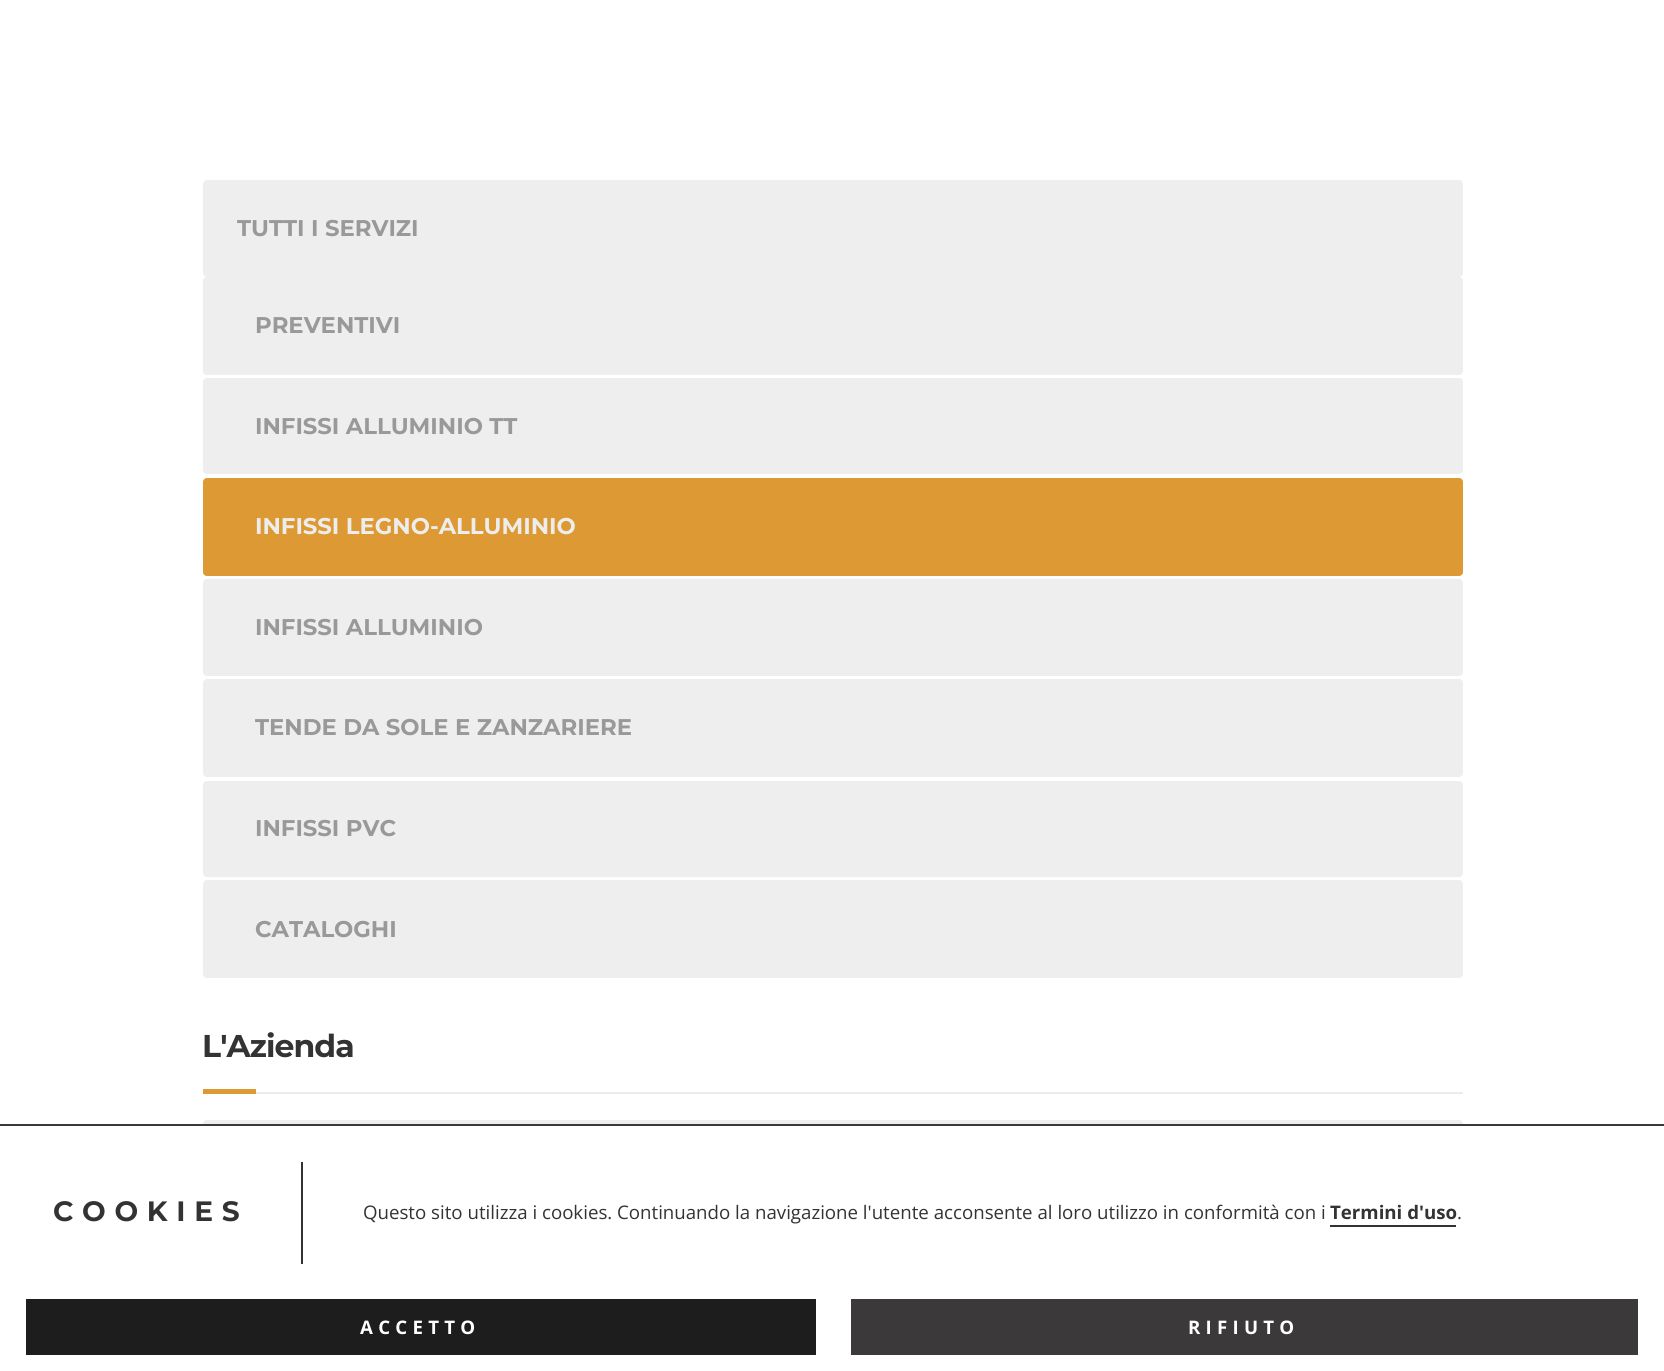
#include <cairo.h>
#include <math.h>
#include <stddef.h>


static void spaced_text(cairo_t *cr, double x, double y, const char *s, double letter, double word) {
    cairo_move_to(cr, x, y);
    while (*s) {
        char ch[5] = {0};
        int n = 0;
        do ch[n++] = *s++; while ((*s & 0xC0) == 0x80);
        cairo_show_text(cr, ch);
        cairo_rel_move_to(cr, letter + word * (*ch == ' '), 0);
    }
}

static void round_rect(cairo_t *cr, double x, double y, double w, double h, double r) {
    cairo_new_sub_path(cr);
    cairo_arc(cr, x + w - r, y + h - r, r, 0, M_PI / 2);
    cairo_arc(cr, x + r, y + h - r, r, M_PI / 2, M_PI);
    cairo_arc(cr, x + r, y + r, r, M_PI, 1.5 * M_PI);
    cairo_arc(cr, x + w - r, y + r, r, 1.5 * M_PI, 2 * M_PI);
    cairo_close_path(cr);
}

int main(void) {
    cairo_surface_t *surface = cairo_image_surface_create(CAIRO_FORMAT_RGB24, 1664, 1371);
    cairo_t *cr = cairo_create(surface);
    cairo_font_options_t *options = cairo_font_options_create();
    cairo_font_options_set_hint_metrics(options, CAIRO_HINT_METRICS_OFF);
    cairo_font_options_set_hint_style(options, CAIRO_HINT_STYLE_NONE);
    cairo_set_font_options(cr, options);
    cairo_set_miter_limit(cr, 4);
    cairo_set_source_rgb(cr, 1, 1, 1);
    cairo_paint(cr);
    cairo_set_source_rgb(cr, 0.933, 0.933, 0.933);
    round_rect(cr, 203, 180, 1260, 97, 4);
    cairo_fill(cr);
    cairo_select_font_face(cr, "Montserrat Thin", CAIRO_FONT_SLANT_NORMAL, CAIRO_FONT_WEIGHT_NORMAL);
    cairo_set_font_size(cr, 22.75);
    cairo_set_source_rgb(cr, 0.6, 0.6, 0.6);
    cairo_move_to(cr, 237, 236);
    cairo_show_text(cr, "TUTTI I SERVIZI");
    cairo_set_source_rgb(cr, 0.933, 0.933, 0.933);
    round_rect(cr, 203, 277, 1260, 98, 4);
    cairo_fill(cr);
    cairo_set_source_rgb(cr, 0.6, 0.6, 0.6);
    cairo_move_to(cr, 255, 333);
    cairo_show_text(cr, "PREVENTIVI");
    cairo_set_source_rgb(cr, 0.933, 0.933, 0.933);
    round_rect(cr, 203, 378, 1260, 96, 4);
    cairo_fill(cr);
    cairo_set_source_rgb(cr, 0.6, 0.6, 0.6);
    cairo_move_to(cr, 255, 434);
    cairo_show_text(cr, "INFISSI ALLUMINIO TT");
    cairo_set_source_rgb(cr, 0.867, 0.6, 0.2);
    round_rect(cr, 203, 478, 1260, 98, 4);
    cairo_fill(cr);
    cairo_set_source_rgb(cr, 0.929, 0.929, 0.929);
    cairo_move_to(cr, 255, 534);
    cairo_show_text(cr, "INFISSI LEGNO-ALLUMINIO");
    cairo_set_source_rgb(cr, 0.933, 0.933, 0.933);
    round_rect(cr, 203, 579, 1260, 97, 4);
    cairo_fill(cr);
    cairo_set_source_rgb(cr, 0.6, 0.6, 0.6);
    cairo_move_to(cr, 255, 635);
    cairo_show_text(cr, "INFISSI ALLUMINIO");
    cairo_set_source_rgb(cr, 0.933, 0.933, 0.933);
    round_rect(cr, 203, 679, 1260, 98, 4);
    cairo_fill(cr);
    cairo_set_source_rgb(cr, 0.6, 0.6, 0.6);
    cairo_move_to(cr, 255, 735);
    cairo_show_text(cr, "TENDE DA SOLE E ZANZARIERE");
    cairo_set_source_rgb(cr, 0.933, 0.933, 0.933);
    round_rect(cr, 203, 781, 1260, 96, 4);
    cairo_fill(cr);
    cairo_set_source_rgb(cr, 0.6, 0.6, 0.6);
    cairo_move_to(cr, 255, 836);
    cairo_show_text(cr, "INFISSI PVC");
    cairo_set_source_rgb(cr, 0.933, 0.933, 0.933);
    round_rect(cr, 203, 880, 1260, 98, 4);
    cairo_fill(cr);
    cairo_set_source_rgb(cr, 0.6, 0.6, 0.6);
    cairo_move_to(cr, 255, 937);
    cairo_show_text(cr, "CATALOGHI");
    cairo_set_source_rgb(cr, 0.922, 0.922, 0.922);
    cairo_rectangle(cr, 256, 1092, 1207, 2);
    cairo_fill(cr);
    cairo_set_font_size(cr, 31.5);
    cairo_set_source_rgb(cr, 0.2, 0.2, 0.2);
    spaced_text(cr, 202, 1057, "L'Azienda", -0.9, 0);
    cairo_set_source_rgb(cr, 0.867, 0.6, 0.2);
    cairo_rectangle(cr, 203, 1089, 53, 5);
    cairo_fill(cr);
    cairo_set_source_rgb(cr, 0.933, 0.933, 0.933);
    round_rect(cr, 203, 1120, 1260, 95, 4);
    cairo_fill(cr);
    cairo_set_source_rgb(cr, 1, 1, 1);
    cairo_rectangle(cr, 203, 1126, 1260, 89);
    cairo_fill(cr);
    cairo_set_source_rgb(cr, 0.231, 0.224, 0.224);
    cairo_rectangle(cr, 0, 1124, 1664, 2);
    cairo_fill(cr);
    cairo_set_source_rgb(cr, 0.2, 0.2, 0.2);
    cairo_rectangle(cr, 301, 1162, 2, 102);
    cairo_fill(cr);
    cairo_set_font_size(cr, 28);
    spaced_text(cr, 53, 1221, "COOKIES", 8.75, 0);
    cairo_select_font_face(cr, "Open Sans", CAIRO_FONT_SLANT_NORMAL, CAIRO_FONT_WEIGHT_NORMAL);
    cairo_set_font_size(cr, 18.67);
    cairo_move_to(cr, 363, 1219);
    cairo_show_text(cr, "Questo sito utilizza i cookies. Continuando la navigazione l'utente acconsente al loro utilizzo in conformità con i");
    cairo_select_font_face(cr, "Open Sans", CAIRO_FONT_SLANT_NORMAL, CAIRO_FONT_WEIGHT_BOLD);
    cairo_move_to(cr, 1330, 1219);
    cairo_show_text(cr, "Termini d'uso");
    cairo_rectangle(cr, 1330, 1225, 126, 2);
    cairo_fill(cr);
    cairo_select_font_face(cr, "Open Sans", CAIRO_FONT_SLANT_NORMAL, CAIRO_FONT_WEIGHT_NORMAL);
    cairo_move_to(cr, 1457, 1219);
    cairo_show_text(cr, ".");
    cairo_set_source_rgb(cr, 0.114, 0.114, 0.114);
    cairo_rectangle(cr, 26, 1299, 790, 56);
    cairo_fill(cr);
    cairo_select_font_face(cr, "Open Sans", CAIRO_FONT_SLANT_NORMAL, CAIRO_FONT_WEIGHT_BOLD);
    cairo_set_source_rgb(cr, 1, 1, 1);
    spaced_text(cr, 360, 1334, "ACCETTO", 5.25, 0);
    cairo_set_source_rgb(cr, 0.231, 0.224, 0.224);
    cairo_rectangle(cr, 851, 1299, 787, 56);
    cairo_fill(cr);
    cairo_set_source_rgb(cr, 1, 1, 1);
    spaced_text(cr, 1188, 1334, "RIFIUTO", 5.25, 0);
    cairo_surface_write_to_png(surface, "page.png");
    cairo_font_options_destroy(options);
    cairo_destroy(cr);
    cairo_surface_destroy(surface);
    return 0;
}
